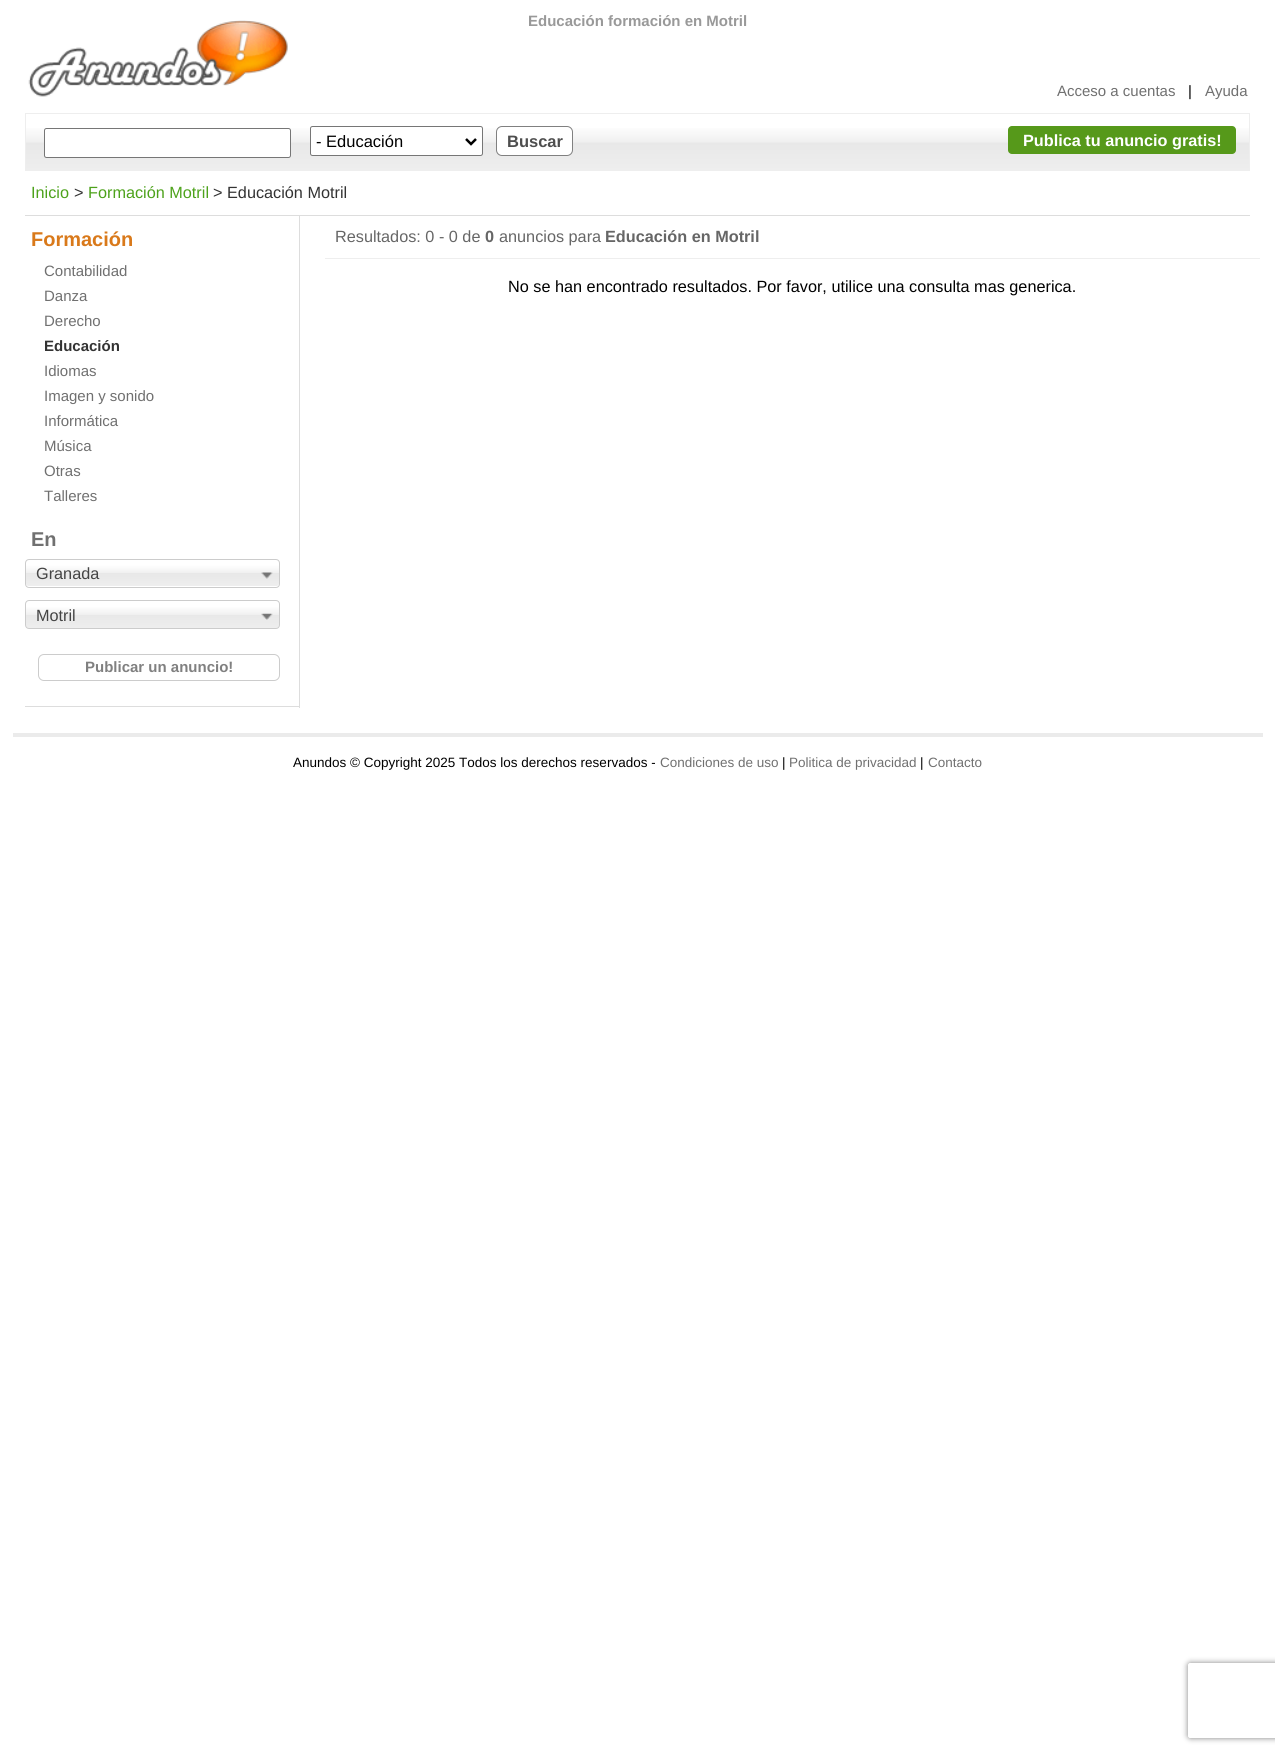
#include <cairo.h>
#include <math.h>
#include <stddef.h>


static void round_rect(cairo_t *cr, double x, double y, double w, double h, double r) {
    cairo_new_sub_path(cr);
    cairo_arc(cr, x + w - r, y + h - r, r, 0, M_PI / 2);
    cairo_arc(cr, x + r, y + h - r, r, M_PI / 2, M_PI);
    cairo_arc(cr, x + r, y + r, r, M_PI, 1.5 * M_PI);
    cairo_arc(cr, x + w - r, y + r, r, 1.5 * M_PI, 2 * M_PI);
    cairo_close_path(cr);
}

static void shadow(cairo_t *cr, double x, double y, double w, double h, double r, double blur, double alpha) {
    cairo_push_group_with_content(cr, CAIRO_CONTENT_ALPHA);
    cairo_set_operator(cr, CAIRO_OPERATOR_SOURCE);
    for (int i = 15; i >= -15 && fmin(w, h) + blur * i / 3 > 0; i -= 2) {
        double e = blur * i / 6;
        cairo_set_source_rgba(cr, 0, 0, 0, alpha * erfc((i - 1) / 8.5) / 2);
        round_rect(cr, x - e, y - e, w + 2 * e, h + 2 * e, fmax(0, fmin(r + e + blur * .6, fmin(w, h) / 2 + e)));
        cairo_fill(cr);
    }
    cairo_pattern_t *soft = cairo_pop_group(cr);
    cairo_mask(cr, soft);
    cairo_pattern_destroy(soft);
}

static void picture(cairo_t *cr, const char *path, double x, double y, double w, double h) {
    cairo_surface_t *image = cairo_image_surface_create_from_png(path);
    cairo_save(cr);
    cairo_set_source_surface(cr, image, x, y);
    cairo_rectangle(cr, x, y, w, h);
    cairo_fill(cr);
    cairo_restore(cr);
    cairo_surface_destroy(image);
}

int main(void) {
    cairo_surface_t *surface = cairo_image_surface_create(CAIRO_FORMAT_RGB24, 1275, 1755);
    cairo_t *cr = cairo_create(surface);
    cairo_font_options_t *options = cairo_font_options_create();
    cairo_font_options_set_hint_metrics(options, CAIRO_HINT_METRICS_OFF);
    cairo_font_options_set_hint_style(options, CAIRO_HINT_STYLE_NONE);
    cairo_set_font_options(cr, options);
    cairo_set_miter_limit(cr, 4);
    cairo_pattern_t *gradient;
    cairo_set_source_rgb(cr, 1, 1, 1);
    cairo_paint(cr);
    picture(cr, "img1.png", 28, 20, 260, 77);
    cairo_select_font_face(cr, "Liberation Sans", CAIRO_FONT_SLANT_NORMAL, CAIRO_FONT_WEIGHT_BOLD);
    cairo_set_font_size(cr, 15);
    cairo_set_source_rgb(cr, 0.6, 0.6, 0.6);
    cairo_move_to(cr, 528, 26);
    cairo_show_text(cr, "Educación formación en Motril");
    cairo_select_font_face(cr, "Liberation Sans", CAIRO_FONT_SLANT_NORMAL, CAIRO_FONT_WEIGHT_NORMAL);
    cairo_set_source_rgb(cr, 0.439, 0.439, 0.439);
    cairo_move_to(cr, 1057, 96);
    cairo_show_text(cr, "Acceso a cuentas");
    cairo_set_source_rgb(cr, 0, 0, 0);
    cairo_move_to(cr, 1188, 96);
    cairo_show_text(cr, "|");
    cairo_set_source_rgb(cr, 0.439, 0.439, 0.439);
    cairo_move_to(cr, 1205, 96);
    cairo_show_text(cr, "Ayuda");
    gradient = cairo_pattern_create_linear(638, 114, 638, 170);
    cairo_pattern_add_color_stop_rgba(gradient, 0.2, 1, 1, 1, 1);
    cairo_pattern_add_color_stop_rgba(gradient, 0.5, 0.941, 0.941, 0.941, 1);
    cairo_pattern_add_color_stop_rgba(gradient, 0.52, 0.91, 0.91, 0.91, 1);
    cairo_pattern_add_color_stop_rgba(gradient, 1, 0.933, 0.933, 0.933, 1);
    cairo_set_source(cr, gradient);
    cairo_pattern_destroy(gradient);
    cairo_rectangle(cr, 26, 128, 1223, 42);
    cairo_fill(cr);
    cairo_rectangle(cr, 25.5, 113.5, 1224, 57);
    cairo_set_source_rgb(cr, 0.933, 0.933, 0.933);
    cairo_set_line_width(cr, 1);
    cairo_stroke(cr);
    cairo_set_source_rgb(cr, 1, 1, 1);
    round_rect(cr, 44.5, 128.5, 246, 29, 2);
    cairo_fill_preserve(cr);
    cairo_set_source_rgb(cr, 0.463, 0.463, 0.463);
    cairo_stroke(cr);
    cairo_set_source_rgb(cr, 1, 1, 1);
    round_rect(cr, 310.5, 126.5, 172, 29, 2);
    cairo_fill_preserve(cr);
    cairo_set_source_rgb(cr, 0.463, 0.463, 0.463);
    cairo_stroke(cr);
    cairo_new_path(cr);
    cairo_move_to(cr, 466, 139);
    cairo_line_to(cr, 471, 144);
    cairo_line_to(cr, 476, 139);
    cairo_set_source_rgb(cr, 0, 0, 0);
    cairo_set_line_width(cr, 2.5);
    cairo_stroke(cr);
    cairo_set_font_size(cr, 16.5);
    cairo_move_to(cr, 316, 147);
    cairo_show_text(cr, "- Educación");
    cairo_set_source_rgb(cr, 1, 1, 1);
    round_rect(cr, 496.5, 126.5, 76, 29, 5.5);
    cairo_fill_preserve(cr);
    cairo_set_source_rgb(cr, 0.502, 0.502, 0.502);
    cairo_set_line_width(cr, 1);
    cairo_stroke(cr);
    cairo_select_font_face(cr, "Liberation Sans", CAIRO_FONT_SLANT_NORMAL, CAIRO_FONT_WEIGHT_BOLD);
    cairo_set_source_rgb(cr, 0.306, 0.306, 0.306);
    cairo_move_to(cr, 507, 147);
    cairo_show_text(cr, "Buscar");
    cairo_set_source_rgb(cr, 0.337, 0.6, 0.102);
    round_rect(cr, 1008, 126, 228, 28, 4);
    cairo_fill(cr);
    cairo_set_font_size(cr, 16.25);
    cairo_set_source_rgb(cr, 1, 1, 1);
    cairo_move_to(cr, 1023, 146);
    cairo_show_text(cr, "Publica tu anuncio gratis!");
    cairo_set_source_rgb(cr, 0.867, 0.867, 0.867);
    cairo_rectangle(cr, 25, 215, 1225, 1);
    cairo_fill(cr);
    cairo_select_font_face(cr, "Liberation Sans", CAIRO_FONT_SLANT_NORMAL, CAIRO_FONT_WEIGHT_NORMAL);
    cairo_set_source_rgb(cr, 0.302, 0.635, 0.106);
    cairo_move_to(cr, 31, 198);
    cairo_show_text(cr, "Inicio");
    cairo_set_source_rgb(cr, 0.2, 0.2, 0.2);
    cairo_move_to(cr, 74, 198);
    cairo_show_text(cr, ">");
    cairo_set_source_rgb(cr, 0.302, 0.635, 0.106);
    cairo_move_to(cr, 88, 198);
    cairo_show_text(cr, "Formación Motril");
    cairo_set_source_rgb(cr, 0.2, 0.2, 0.2);
    cairo_move_to(cr, 213, 198);
    cairo_show_text(cr, "> Educación Motril");
    cairo_set_source_rgb(cr, 0.867, 0.867, 0.867);
    cairo_rectangle(cr, 299, 216, 1, 492);
    cairo_fill(cr);
    cairo_rectangle(cr, 25, 706, 275, 1);
    cairo_fill(cr);
    cairo_select_font_face(cr, "Liberation Sans", CAIRO_FONT_SLANT_NORMAL, CAIRO_FONT_WEIGHT_BOLD);
    cairo_set_font_size(cr, 20);
    cairo_set_source_rgb(cr, 0.851, 0.475, 0.102);
    cairo_move_to(cr, 31, 246);
    cairo_show_text(cr, "Formación");
    cairo_select_font_face(cr, "Liberation Sans", CAIRO_FONT_SLANT_NORMAL, CAIRO_FONT_WEIGHT_NORMAL);
    cairo_set_font_size(cr, 15);
    cairo_set_source_rgb(cr, 0.439, 0.439, 0.439);
    cairo_move_to(cr, 44, 276);
    cairo_show_text(cr, "Contabilidad");
    cairo_move_to(cr, 44, 301);
    cairo_show_text(cr, "Danza");
    cairo_move_to(cr, 44, 326);
    cairo_show_text(cr, "Derecho");
    cairo_select_font_face(cr, "Liberation Sans", CAIRO_FONT_SLANT_NORMAL, CAIRO_FONT_WEIGHT_BOLD);
    cairo_set_source_rgb(cr, 0.2, 0.2, 0.2);
    cairo_move_to(cr, 44, 351);
    cairo_show_text(cr, "Educación");
    cairo_select_font_face(cr, "Liberation Sans", CAIRO_FONT_SLANT_NORMAL, CAIRO_FONT_WEIGHT_NORMAL);
    cairo_set_source_rgb(cr, 0.439, 0.439, 0.439);
    cairo_move_to(cr, 44, 376);
    cairo_show_text(cr, "Idiomas");
    cairo_move_to(cr, 44, 401);
    cairo_show_text(cr, "Imagen y sonido");
    cairo_move_to(cr, 44, 426);
    cairo_show_text(cr, "Informática");
    cairo_move_to(cr, 44, 451);
    cairo_show_text(cr, "Música");
    cairo_move_to(cr, 44, 476);
    cairo_show_text(cr, "Otras");
    cairo_move_to(cr, 44, 501);
    cairo_show_text(cr, "Talleres");
    cairo_select_font_face(cr, "Liberation Sans", CAIRO_FONT_SLANT_NORMAL, CAIRO_FONT_WEIGHT_BOLD);
    cairo_set_font_size(cr, 20);
    cairo_move_to(cr, 31, 546);
    cairo_show_text(cr, "En");
    gradient = cairo_pattern_create_linear(153, 560, 153, 586);
    cairo_pattern_add_color_stop_rgba(gradient, 0.2, 1, 1, 1, 1);
    cairo_pattern_add_color_stop_rgba(gradient, 0.5, 0.941, 0.941, 0.941, 1);
    cairo_pattern_add_color_stop_rgba(gradient, 0.52, 0.91, 0.91, 0.91, 1);
    cairo_pattern_add_color_stop_rgba(gradient, 1, 0.933, 0.933, 0.933, 1);
    cairo_set_source(cr, gradient);
    cairo_pattern_destroy(gradient);
    round_rect(cr, 26, 560, 253, 26, 2.5);
    cairo_fill(cr);
    round_rect(cr, 25.5, 559.5, 254, 28, 3.5);
    cairo_set_source_rgb(cr, 0.8, 0.8, 0.8);
    cairo_stroke(cr);
    cairo_select_font_face(cr, "Liberation Sans", CAIRO_FONT_SLANT_NORMAL, CAIRO_FONT_WEIGHT_NORMAL);
    cairo_set_font_size(cr, 16.25);
    cairo_set_source_rgb(cr, 0.267, 0.267, 0.267);
    cairo_move_to(cr, 36, 579);
    cairo_show_text(cr, "Granada");
    picture(cr, "img2.png", 261, 572, 12, 7);
    gradient = cairo_pattern_create_linear(153, 601, 153, 628);
    cairo_pattern_add_color_stop_rgba(gradient, 0.2, 1, 1, 1, 1);
    cairo_pattern_add_color_stop_rgba(gradient, 0.5, 0.941, 0.941, 0.941, 1);
    cairo_pattern_add_color_stop_rgba(gradient, 0.52, 0.91, 0.91, 0.91, 1);
    cairo_pattern_add_color_stop_rgba(gradient, 1, 0.933, 0.933, 0.933, 1);
    cairo_set_source(cr, gradient);
    cairo_pattern_destroy(gradient);
    round_rect(cr, 26, 601, 253, 27, 2.5);
    cairo_fill(cr);
    round_rect(cr, 25.5, 600.5, 254, 28, 3.5);
    cairo_set_source_rgb(cr, 0.8, 0.8, 0.8);
    cairo_stroke(cr);
    cairo_set_source_rgb(cr, 0.267, 0.267, 0.267);
    cairo_move_to(cr, 36, 621);
    cairo_show_text(cr, "Motril");
    picture(cr, "img3.png", 261, 613, 12, 7);
    round_rect(cr, 38.5, 654.5, 241, 26, 5.5);
    cairo_set_source_rgb(cr, 0.8, 0.8, 0.8);
    cairo_stroke(cr);
    cairo_select_font_face(cr, "Liberation Sans", CAIRO_FONT_SLANT_NORMAL, CAIRO_FONT_WEIGHT_BOLD);
    cairo_set_font_size(cr, 15);
    cairo_set_source_rgb(cr, 0.502, 0.502, 0.502);
    cairo_move_to(cr, 85, 672);
    cairo_show_text(cr, "Publicar un anuncio!");
    cairo_select_font_face(cr, "Liberation Sans", CAIRO_FONT_SLANT_NORMAL, CAIRO_FONT_WEIGHT_NORMAL);
    cairo_set_font_size(cr, 16.25);
    cairo_set_source_rgb(cr, 0.4, 0.4, 0.4);
    cairo_move_to(cr, 335, 242);
    cairo_show_text(cr, "Resultados: 0 - 0 de");
    cairo_select_font_face(cr, "Liberation Sans", CAIRO_FONT_SLANT_NORMAL, CAIRO_FONT_WEIGHT_BOLD);
    cairo_move_to(cr, 485, 242);
    cairo_show_text(cr, "0");
    cairo_select_font_face(cr, "Liberation Sans", CAIRO_FONT_SLANT_NORMAL, CAIRO_FONT_WEIGHT_NORMAL);
    cairo_move_to(cr, 499, 242);
    cairo_show_text(cr, "anuncios para");
    cairo_select_font_face(cr, "Liberation Sans", CAIRO_FONT_SLANT_NORMAL, CAIRO_FONT_WEIGHT_BOLD);
    cairo_move_to(cr, 605, 242);
    cairo_show_text(cr, "Educación en Motril");
    cairo_set_source_rgb(cr, 0.933, 0.933, 0.933);
    cairo_rectangle(cr, 325, 258, 935, 1);
    cairo_fill(cr);
    cairo_select_font_face(cr, "Liberation Sans", CAIRO_FONT_SLANT_NORMAL, CAIRO_FONT_WEIGHT_NORMAL);
    cairo_set_source_rgb(cr, 0, 0, 0);
    cairo_move_to(cr, 508, 292);
    cairo_show_text(cr, "No se han encontrado resultados. Por favor, utilice una consulta mas generica.");
    cairo_set_source_rgb(cr, 0.918, 0.918, 0.918);
    cairo_rectangle(cr, 13, 733, 1250, 4);
    cairo_fill(cr);
    cairo_set_font_size(cr, 13.5);
    cairo_set_source_rgb(cr, 0, 0, 0);
    cairo_move_to(cr, 293, 767);
    cairo_show_text(cr, "Anundos © Copyright 2025 Todos los derechos reservados -");
    cairo_set_source_rgb(cr, 0.439, 0.439, 0.439);
    cairo_move_to(cr, 660, 767);
    cairo_show_text(cr, "Condiciones de uso");
    cairo_set_source_rgb(cr, 0, 0, 0);
    cairo_move_to(cr, 782, 767);
    cairo_show_text(cr, "|");
    cairo_set_source_rgb(cr, 0.439, 0.439, 0.439);
    cairo_move_to(cr, 789, 767);
    cairo_show_text(cr, "Politica de privacidad");
    cairo_set_source_rgb(cr, 0, 0, 0);
    cairo_move_to(cr, 920, 767);
    cairo_show_text(cr, "|");
    cairo_set_source_rgb(cr, 0.439, 0.439, 0.439);
    cairo_move_to(cr, 928, 767);
    cairo_show_text(cr, "Contacto");
    cairo_save(cr);
    cairo_set_fill_rule(cr, CAIRO_FILL_RULE_EVEN_ODD);
    cairo_new_path(cr);
    cairo_move_to(cr, 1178, 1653);
    cairo_line_to(cr, 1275, 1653);
    cairo_line_to(cr, 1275, 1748);
    cairo_line_to(cr, 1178, 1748);
    cairo_close_path(cr);
    cairo_move_to(cr, 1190.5, 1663);
    cairo_line_to(cr, 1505.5, 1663);
    cairo_curve_to(cr, 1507, 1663, 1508, 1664, 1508, 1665.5);
    cairo_line_to(cr, 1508, 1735.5);
    cairo_curve_to(cr, 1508, 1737, 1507, 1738, 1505.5, 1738);
    cairo_line_to(cr, 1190.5, 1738);
    cairo_curve_to(cr, 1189, 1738, 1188, 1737, 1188, 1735.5);
    cairo_line_to(cr, 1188, 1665.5);
    cairo_curve_to(cr, 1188, 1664, 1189, 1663, 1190.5, 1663);
    cairo_close_path(cr);
    cairo_clip(cr);
    cairo_set_source_rgb(cr, 0.502, 0.502, 0.502);
    shadow(cr, 1188, 1663, 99, 75, 2.5, 3, 1);
    cairo_restore(cr);
    cairo_surface_write_to_png(surface, "page.png");
    cairo_font_options_destroy(options);
    cairo_destroy(cr);
    cairo_surface_destroy(surface);
    return 0;
}
